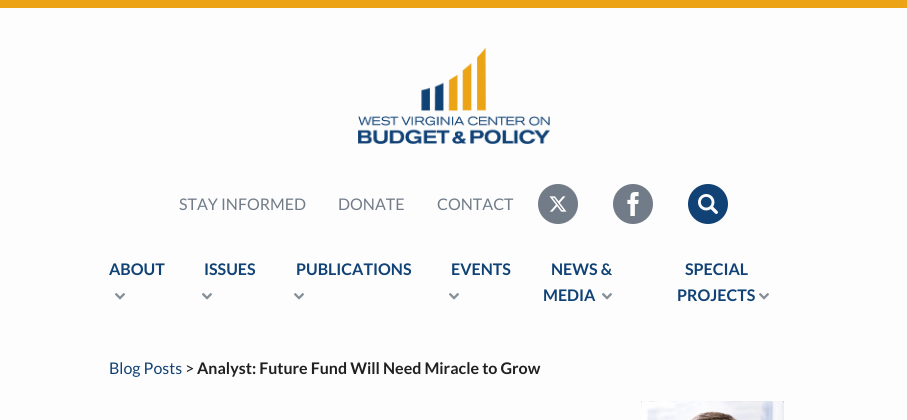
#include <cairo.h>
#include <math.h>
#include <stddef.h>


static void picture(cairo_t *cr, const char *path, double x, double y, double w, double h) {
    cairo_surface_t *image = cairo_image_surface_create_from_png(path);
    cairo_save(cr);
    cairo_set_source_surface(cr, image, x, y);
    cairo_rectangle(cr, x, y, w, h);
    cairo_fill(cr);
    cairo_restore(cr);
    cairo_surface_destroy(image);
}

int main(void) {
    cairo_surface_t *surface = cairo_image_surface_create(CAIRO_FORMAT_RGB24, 907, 420);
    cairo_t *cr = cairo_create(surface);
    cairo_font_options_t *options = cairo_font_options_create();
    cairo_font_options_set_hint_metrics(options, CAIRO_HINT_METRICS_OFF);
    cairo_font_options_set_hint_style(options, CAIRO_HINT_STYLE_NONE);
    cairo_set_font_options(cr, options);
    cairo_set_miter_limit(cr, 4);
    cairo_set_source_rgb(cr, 0.992, 0.992, 0.992);
    cairo_paint(cr);
    cairo_set_source_rgb(cr, 0.922, 0.643, 0.086);
    cairo_rectangle(cr, 0, 0, 907, 8);
    cairo_fill(cr);
    picture(cr, "img1.png", 358, 48, 192, 96);
    cairo_select_font_face(cr, "Lato", CAIRO_FONT_SLANT_NORMAL, CAIRO_FONT_WEIGHT_NORMAL);
    cairo_set_font_size(cr, 16);
    cairo_set_source_rgb(cr, 0.443, 0.486, 0.533);
    cairo_move_to(cr, 179, 210);
    cairo_show_text(cr, "STAY INFORMED");
    cairo_move_to(cr, 338, 210);
    cairo_show_text(cr, "DONATE");
    cairo_move_to(cr, 437, 210);
    cairo_show_text(cr, "CONTACT");
    picture(cr, "img2.png", 538, 184, 40, 40);
    picture(cr, "img3.png", 613, 184, 40, 40);
    picture(cr, "img4.png", 688, 184, 40, 40);
    cairo_select_font_face(cr, "Lato", CAIRO_FONT_SLANT_NORMAL, CAIRO_FONT_WEIGHT_BOLD);
    cairo_set_source_rgb(cr, 0.067, 0.259, 0.463);
    cairo_move_to(cr, 109, 275);
    cairo_show_text(cr, "ABOUT");
    picture(cr, "img5.png", 115, 293, 10, 7);
    cairo_move_to(cr, 204, 275);
    cairo_show_text(cr, "ISSUES");
    picture(cr, "img5.png", 202, 293, 10, 7);
    cairo_move_to(cr, 296, 275);
    cairo_show_text(cr, "PUBLICATIONS");
    picture(cr, "img5.png", 294, 293, 10, 7);
    cairo_move_to(cr, 451, 275);
    cairo_show_text(cr, "EVENTS");
    picture(cr, "img5.png", 449, 293, 10, 7);
    cairo_move_to(cr, 551, 275);
    cairo_show_text(cr, "NEWS &");
    cairo_move_to(cr, 543, 301);
    cairo_show_text(cr, "MEDIA");
    picture(cr, "img5.png", 602, 293, 10, 7);
    cairo_move_to(cr, 685, 275);
    cairo_show_text(cr, "SPECIAL");
    cairo_move_to(cr, 677, 301);
    cairo_show_text(cr, "PROJECTS");
    picture(cr, "img5.png", 759, 293, 10, 7);
    cairo_select_font_face(cr, "Lato", CAIRO_FONT_SLANT_NORMAL, CAIRO_FONT_WEIGHT_NORMAL);
    cairo_move_to(cr, 109, 374);
    cairo_show_text(cr, "Blog Posts");
    cairo_set_source_rgb(cr, 0.125, 0.125, 0.125);
    cairo_move_to(cr, 185, 374);
    cairo_show_text(cr, ">");
    cairo_select_font_face(cr, "Lato", CAIRO_FONT_SLANT_NORMAL, CAIRO_FONT_WEIGHT_BOLD);
    cairo_move_to(cr, 197, 374);
    cairo_show_text(cr, "Analyst: Future Fund Will Need Miracle to Grow");
    picture(cr, "img6.png", 641, 401, 143, 19);
    cairo_surface_write_to_png(surface, "page.png");
    cairo_font_options_destroy(options);
    cairo_destroy(cr);
    cairo_surface_destroy(surface);
    return 0;
}
